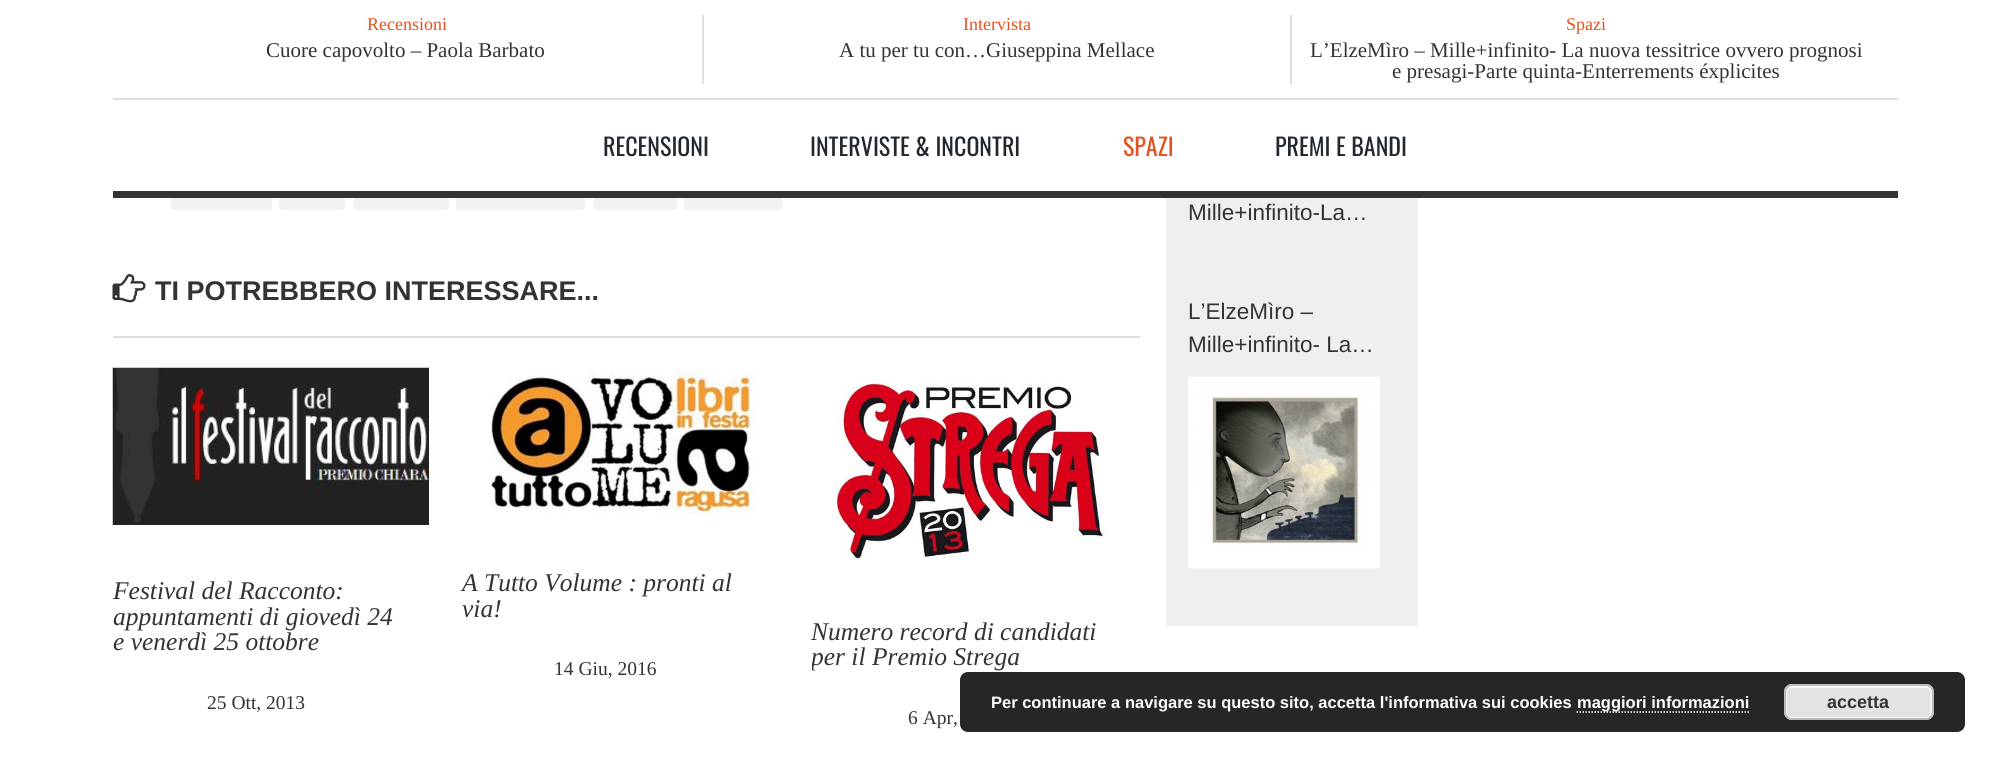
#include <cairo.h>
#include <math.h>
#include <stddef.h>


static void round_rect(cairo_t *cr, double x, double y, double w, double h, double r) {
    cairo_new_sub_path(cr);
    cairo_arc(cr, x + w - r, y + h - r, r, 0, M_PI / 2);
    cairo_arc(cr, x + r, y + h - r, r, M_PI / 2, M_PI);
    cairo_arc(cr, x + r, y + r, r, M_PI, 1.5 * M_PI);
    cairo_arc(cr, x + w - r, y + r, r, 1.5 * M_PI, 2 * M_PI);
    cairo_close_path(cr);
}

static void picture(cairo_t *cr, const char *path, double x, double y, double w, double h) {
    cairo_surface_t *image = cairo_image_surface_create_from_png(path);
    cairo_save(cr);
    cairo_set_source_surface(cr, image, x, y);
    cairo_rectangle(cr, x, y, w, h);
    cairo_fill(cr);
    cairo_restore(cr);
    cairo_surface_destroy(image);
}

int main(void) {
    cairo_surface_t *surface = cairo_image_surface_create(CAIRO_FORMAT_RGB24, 2010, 777);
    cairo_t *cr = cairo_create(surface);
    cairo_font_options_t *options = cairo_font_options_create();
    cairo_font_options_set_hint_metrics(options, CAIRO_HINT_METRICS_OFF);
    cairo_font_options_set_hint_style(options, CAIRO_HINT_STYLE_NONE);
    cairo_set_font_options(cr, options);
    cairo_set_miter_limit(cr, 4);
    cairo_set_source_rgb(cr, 1, 1, 1);
    cairo_paint(cr);
    cairo_select_font_face(cr, "Liberation Serif", CAIRO_FONT_SLANT_NORMAL, CAIRO_FONT_WEIGHT_NORMAL);
    cairo_set_font_size(cr, 18);
    cairo_set_source_rgb(cr, 0.906, 0.318, 0.118);
    cairo_move_to(cr, 367, 30);
    cairo_show_text(cr, "Recensioni");
    cairo_set_font_size(cr, 21);
    cairo_set_source_rgb(cr, 0.2, 0.2, 0.2);
    cairo_move_to(cr, 266, 57);
    cairo_show_text(cr, "Cuore capovolto – Paola Barbato");
    cairo_set_source_rgb(cr, 0.875, 0.875, 0.875);
    cairo_rectangle(cr, 702, 15, 2, 69);
    cairo_fill(cr);
    cairo_set_font_size(cr, 18);
    cairo_set_source_rgb(cr, 0.906, 0.318, 0.118);
    cairo_move_to(cr, 963, 30);
    cairo_show_text(cr, "Intervista");
    cairo_set_font_size(cr, 21);
    cairo_set_source_rgb(cr, 0.2, 0.2, 0.2);
    cairo_move_to(cr, 839, 57);
    cairo_show_text(cr, "A tu per tu con…Giuseppina Mellace");
    cairo_set_source_rgb(cr, 0.875, 0.875, 0.875);
    cairo_rectangle(cr, 1290, 15, 2, 69);
    cairo_fill(cr);
    cairo_set_font_size(cr, 18);
    cairo_set_source_rgb(cr, 0.906, 0.318, 0.118);
    cairo_move_to(cr, 1566, 30);
    cairo_show_text(cr, "Spazi");
    cairo_set_font_size(cr, 21);
    cairo_set_source_rgb(cr, 0.2, 0.2, 0.2);
    cairo_move_to(cr, 1310, 57);
    cairo_show_text(cr, "L’ElzeMìro – Mille+infinito- La nuova tessitrice ovvero prognosi");
    cairo_move_to(cr, 1392, 78);
    cairo_show_text(cr, "e presagi-Parte quinta-Enterrements éxplicites");
    cairo_set_source_rgb(cr, 0.949, 0.949, 0.949);
    round_rect(cr, 171, 177, 101, 33, 3);
    cairo_fill(cr);
    round_rect(cr, 279, 177, 66, 33, 3);
    cairo_fill(cr);
    round_rect(cr, 353, 177, 96, 33, 3);
    cairo_fill(cr);
    round_rect(cr, 456, 177, 129, 33, 3);
    cairo_fill(cr);
    round_rect(cr, 593, 177, 84, 33, 3);
    cairo_fill(cr);
    round_rect(cr, 684, 177, 99, 33, 3);
    cairo_fill(cr);
    cairo_set_source_rgb(cr, 1, 1, 1);
    cairo_rectangle(cr, 171, 177, 612, 14);
    cairo_fill(cr);
    cairo_set_source_rgb(cr, 0.875, 0.875, 0.875);
    cairo_rectangle(cr, 113, 98, 1785, 2);
    cairo_fill(cr);
    cairo_set_source_rgb(cr, 0.2, 0.2, 0.2);
    cairo_rectangle(cr, 113, 191, 1785, 7);
    cairo_fill(cr);
    cairo_select_font_face(cr, "Oswald", CAIRO_FONT_SLANT_NORMAL, CAIRO_FONT_WEIGHT_NORMAL);
    cairo_set_font_size(cr, 24);
    cairo_set_source_rgb(cr, 0.133, 0.157, 0.184);
    cairo_move_to(cr, 603, 156);
    cairo_show_text(cr, "RECENSIONI");
    cairo_move_to(cr, 810, 156);
    cairo_show_text(cr, "INTERVISTE & INCONTRI");
    cairo_set_source_rgb(cr, 0.906, 0.318, 0.118);
    cairo_move_to(cr, 1123, 156);
    cairo_show_text(cr, "SPAZI");
    cairo_set_source_rgb(cr, 0.133, 0.157, 0.184);
    cairo_move_to(cr, 1275, 156);
    cairo_show_text(cr, "PREMI E BANDI");
    picture(cr, "img1.png", 112, 274, 34, 29);
    cairo_select_font_face(cr, "Liberation Sans", CAIRO_FONT_SLANT_NORMAL, CAIRO_FONT_WEIGHT_BOLD);
    cairo_set_font_size(cr, 27);
    cairo_set_source_rgb(cr, 0.2, 0.2, 0.2);
    cairo_move_to(cr, 155, 300);
    cairo_show_text(cr, "TI POTREBBERO INTERESSARE...");
    cairo_set_source_rgb(cr, 0.875, 0.875, 0.875);
    cairo_rectangle(cr, 113, 336, 1027, 2);
    cairo_fill(cr);
    picture(cr, "img2.png", 112, 367, 317, 158);
    cairo_select_font_face(cr, "Liberation Serif", CAIRO_FONT_SLANT_ITALIC, CAIRO_FONT_WEIGHT_NORMAL);
    cairo_set_font_size(cr, 25.5);
    cairo_set_source_rgb(cr, 0.2, 0.2, 0.2);
    cairo_move_to(cr, 113, 599);
    cairo_show_text(cr, "Festival del Racconto:");
    cairo_move_to(cr, 113, 625);
    cairo_show_text(cr, "appuntamenti di giovedì 24");
    cairo_move_to(cr, 113, 650);
    cairo_show_text(cr, "e venerdì 25 ottobre");
    cairo_select_font_face(cr, "Liberation Serif", CAIRO_FONT_SLANT_NORMAL, CAIRO_FONT_WEIGHT_NORMAL);
    cairo_set_font_size(cr, 19.5);
    cairo_move_to(cr, 207, 709);
    cairo_show_text(cr, "25 Ott, 2013");
    picture(cr, "img3.png", 489, 368, 269, 148);
    cairo_select_font_face(cr, "Liberation Serif", CAIRO_FONT_SLANT_ITALIC, CAIRO_FONT_WEIGHT_NORMAL);
    cairo_set_font_size(cr, 25.5);
    cairo_move_to(cr, 462, 591);
    cairo_show_text(cr, "A Tutto Volume : pronti al");
    cairo_move_to(cr, 462, 617);
    cairo_show_text(cr, "via!");
    cairo_select_font_face(cr, "Liberation Serif", CAIRO_FONT_SLANT_NORMAL, CAIRO_FONT_WEIGHT_NORMAL);
    cairo_set_font_size(cr, 19.5);
    cairo_move_to(cr, 554, 675);
    cairo_show_text(cr, "14 Giu, 2016");
    picture(cr, "img4.png", 832, 378, 273, 181);
    cairo_select_font_face(cr, "Liberation Serif", CAIRO_FONT_SLANT_ITALIC, CAIRO_FONT_WEIGHT_NORMAL);
    cairo_set_font_size(cr, 25.5);
    cairo_move_to(cr, 811, 640);
    cairo_show_text(cr, "Numero record di candidati");
    cairo_save(cr);
    cairo_rectangle(cr, 812, 368, 316, 388);
    cairo_clip(cr);
    cairo_move_to(cr, 811, 665);
    cairo_show_text(cr, "per il Premio Strega");
    cairo_restore(cr);
    cairo_select_font_face(cr, "Liberation Serif", CAIRO_FONT_SLANT_NORMAL, CAIRO_FONT_WEIGHT_NORMAL);
    cairo_set_font_size(cr, 19.5);
    cairo_move_to(cr, 908, 724);
    cairo_show_text(cr, "6 Apr,");
    cairo_set_source_rgb(cr, 0.937, 0.937, 0.937);
    cairo_rectangle(cr, 1166, 198, 252, 428);
    cairo_fill(cr);
    cairo_select_font_face(cr, "Liberation Sans", CAIRO_FONT_SLANT_NORMAL, CAIRO_FONT_WEIGHT_NORMAL);
    cairo_set_font_size(cr, 22.5);
    cairo_set_source_rgb(cr, 0.2, 0.2, 0.2);
    cairo_move_to(cr, 1188, 220);
    cairo_show_text(cr, "Mille+infinito-La…");
    cairo_move_to(cr, 1188, 319);
    cairo_show_text(cr, "L’ElzeMìro –");
    cairo_move_to(cr, 1188, 352);
    cairo_show_text(cr, "Mille+infinito- La…");
    picture(cr, "img5.png", 1188, 376, 192, 193);
    cairo_set_source_rgba(cr, 0, 0, 0, 0.85);
    round_rect(cr, 960, 672, 1005, 60, 8);
    cairo_fill(cr);
    cairo_select_font_face(cr, "Liberation Sans", CAIRO_FONT_SLANT_NORMAL, CAIRO_FONT_WEIGHT_BOLD);
    cairo_set_font_size(cr, 16.5);
    cairo_set_source_rgb(cr, 1, 1, 1);
    cairo_move_to(cr, 991, 708);
    cairo_show_text(cr, "Per continuare a navigare su questo sito, accetta l'informativa sui cookies");
    cairo_new_path(cr);
    cairo_move_to(cr, 1576.5, 712);
    cairo_line_to(cr, 1749, 712);
    cairo_set_line_width(cr, 1.5);
    cairo_set_dash(cr, (double[]){1.5, 1.5}, 2, 0);
    cairo_stroke(cr);
    cairo_move_to(cr, 1577, 708);
    cairo_show_text(cr, "maggiori informazioni");
    cairo_set_source_rgb(cr, 0.89, 0.89, 0.89);
    round_rect(cr, 1784, 684, 150, 36, 8);
    cairo_fill(cr);
    round_rect(cr, 1786, 687, 145, 31, 5);
    cairo_set_source_rgb(cr, 0.965, 0.965, 0.965);
    cairo_set_line_width(cr, 2);
    cairo_set_dash(cr, NULL, 0, 0);
    cairo_stroke(cr);
    round_rect(cr, 1785, 685, 148, 34, 7);
    cairo_set_source_rgb(cr, 0.733, 0.733, 0.733);
    cairo_stroke(cr);
    cairo_set_font_size(cr, 18);
    cairo_set_source_rgb(cr, 0.2, 0.2, 0.2);
    cairo_move_to(cr, 1827, 708);
    cairo_show_text(cr, "accetta");
    cairo_surface_write_to_png(surface, "page.png");
    cairo_font_options_destroy(options);
    cairo_destroy(cr);
    cairo_surface_destroy(surface);
    return 0;
}
